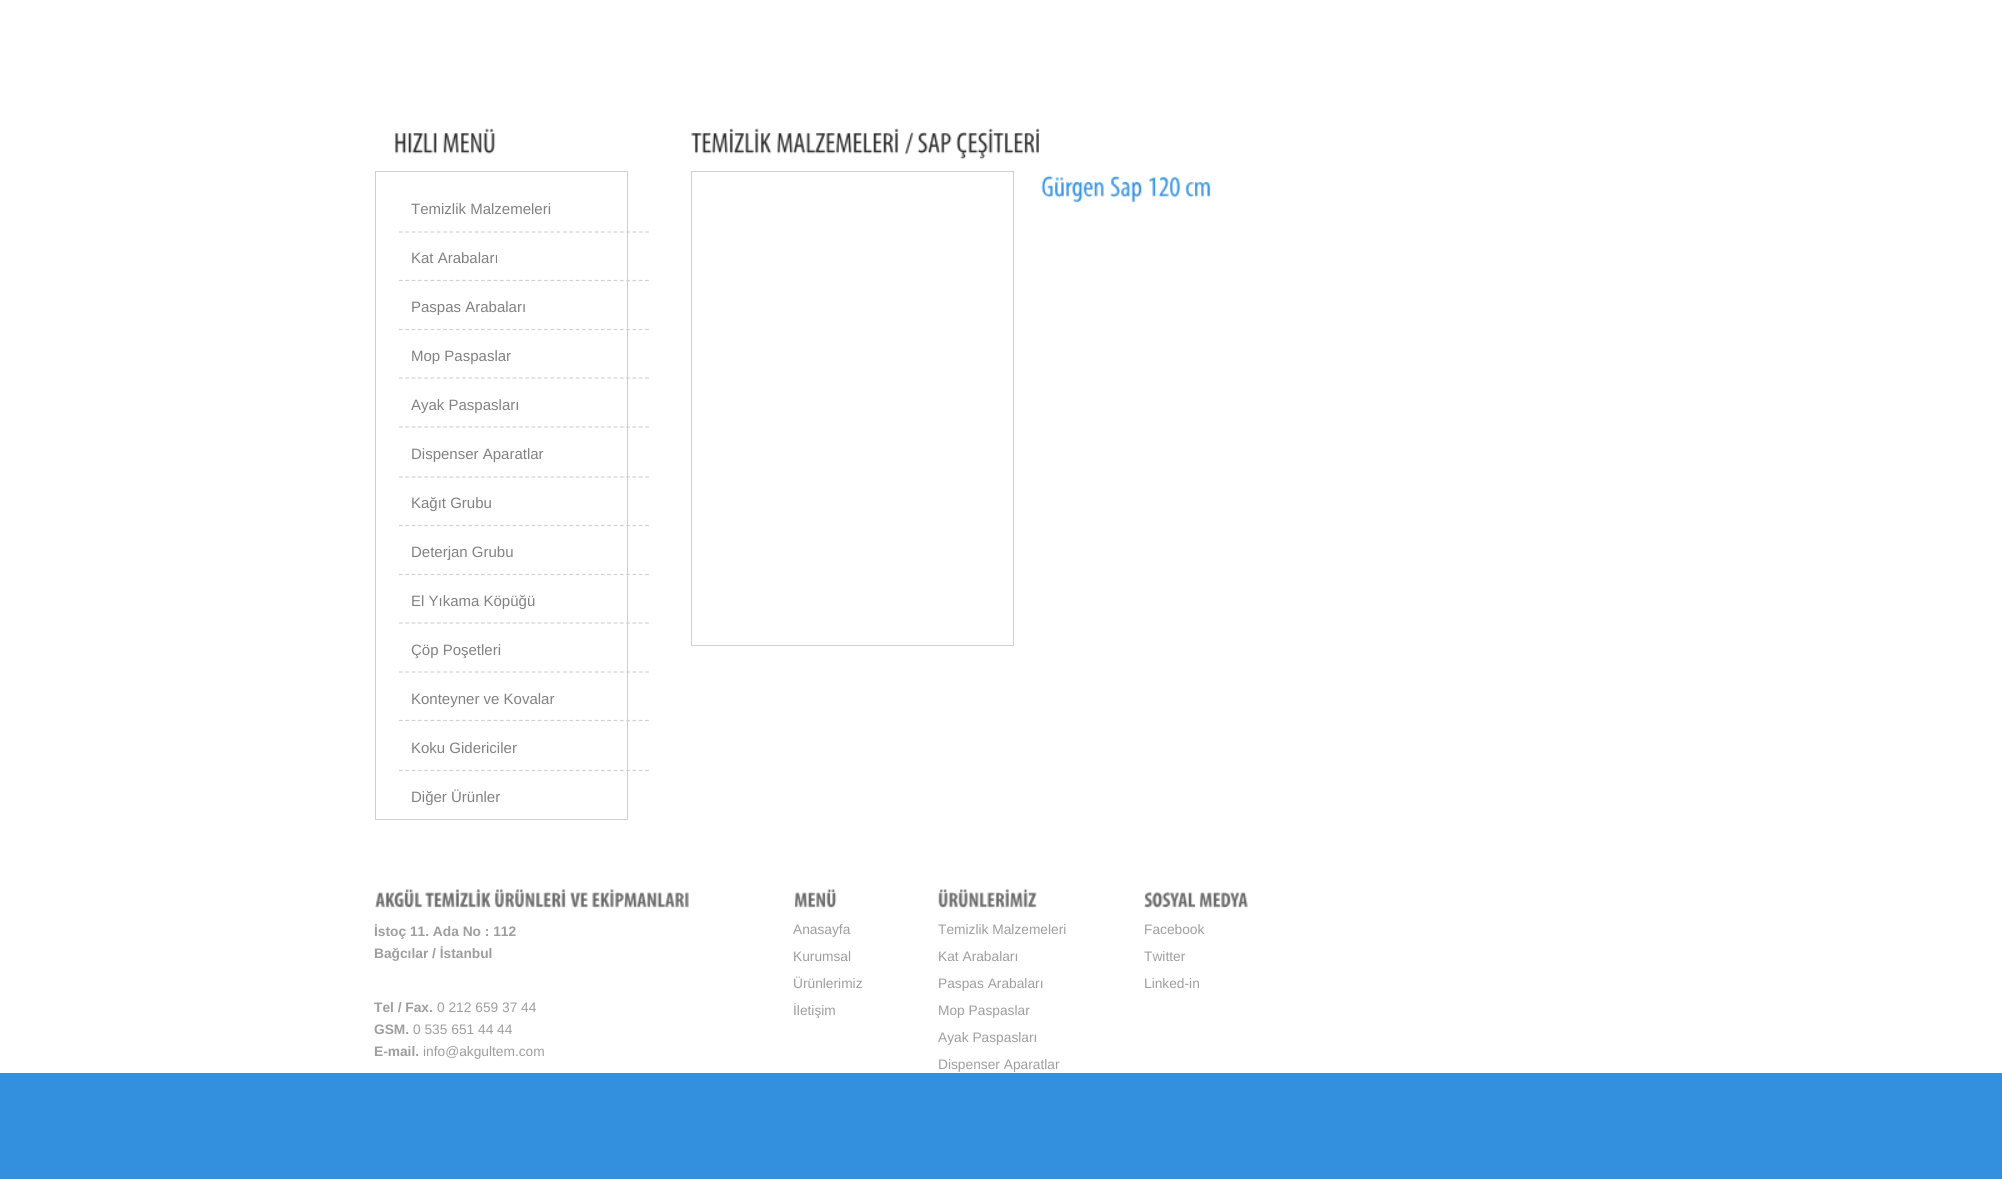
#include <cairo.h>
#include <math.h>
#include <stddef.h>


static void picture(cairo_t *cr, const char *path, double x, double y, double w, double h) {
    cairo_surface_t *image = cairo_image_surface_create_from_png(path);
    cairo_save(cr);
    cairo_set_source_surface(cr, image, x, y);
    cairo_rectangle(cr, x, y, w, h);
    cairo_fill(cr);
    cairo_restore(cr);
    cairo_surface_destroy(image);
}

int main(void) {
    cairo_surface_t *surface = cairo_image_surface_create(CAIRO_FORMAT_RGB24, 2002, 1179);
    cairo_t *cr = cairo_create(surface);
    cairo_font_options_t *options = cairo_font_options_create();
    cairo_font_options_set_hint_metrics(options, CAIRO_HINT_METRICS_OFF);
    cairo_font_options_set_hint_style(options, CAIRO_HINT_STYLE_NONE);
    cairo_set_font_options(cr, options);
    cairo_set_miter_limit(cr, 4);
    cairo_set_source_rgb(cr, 1, 1, 1);
    cairo_paint(cr);
    picture(cr, "img1.png", 394, 132, 43, 22);
    picture(cr, "img2.png", 443, 128, 53, 26);
    cairo_rectangle(cr, 375.5, 171.5, 252, 648);
    cairo_set_source_rgb(cr, 0.816, 0.816, 0.816);
    cairo_set_line_width(cr, 1);
    cairo_stroke(cr);
    cairo_select_font_face(cr, "Liberation Sans", CAIRO_FONT_SLANT_NORMAL, CAIRO_FONT_WEIGHT_NORMAL);
    cairo_set_font_size(cr, 15);
    cairo_set_source_rgb(cr, 0.506, 0.506, 0.506);
    cairo_move_to(cr, 411, 214);
    cairo_show_text(cr, "Temizlik Malzemeleri");
    cairo_new_path(cr);
    cairo_move_to(cr, 399, 232);
    cairo_line_to(cr, 649, 232);
    cairo_set_source_rgb(cr, 0.824, 0.824, 0.824);
    cairo_set_line_width(cr, 1.2);
    cairo_set_dash(cr, (double[]){3.75, 2.56}, 2, 0);
    cairo_stroke(cr);
    cairo_set_source_rgb(cr, 0.506, 0.506, 0.506);
    cairo_move_to(cr, 411, 263);
    cairo_show_text(cr, "Kat Arabaları");
    cairo_new_path(cr);
    cairo_move_to(cr, 399, 280.5);
    cairo_line_to(cr, 649, 280.5);
    cairo_set_source_rgb(cr, 0.824, 0.824, 0.824);
    cairo_stroke(cr);
    cairo_set_source_rgb(cr, 0.506, 0.506, 0.506);
    cairo_move_to(cr, 411, 312);
    cairo_show_text(cr, "Paspas Arabaları");
    cairo_new_path(cr);
    cairo_move_to(cr, 399, 329.5);
    cairo_line_to(cr, 649, 329.5);
    cairo_set_source_rgb(cr, 0.824, 0.824, 0.824);
    cairo_stroke(cr);
    cairo_set_source_rgb(cr, 0.506, 0.506, 0.506);
    cairo_move_to(cr, 411, 361);
    cairo_show_text(cr, "Mop Paspaslar");
    cairo_new_path(cr);
    cairo_move_to(cr, 399, 378);
    cairo_line_to(cr, 649, 378);
    cairo_set_source_rgb(cr, 0.824, 0.824, 0.824);
    cairo_stroke(cr);
    cairo_set_source_rgb(cr, 0.506, 0.506, 0.506);
    cairo_move_to(cr, 411, 410);
    cairo_show_text(cr, "Ayak Paspasları");
    cairo_new_path(cr);
    cairo_move_to(cr, 399, 427);
    cairo_line_to(cr, 649, 427);
    cairo_set_source_rgb(cr, 0.824, 0.824, 0.824);
    cairo_stroke(cr);
    cairo_set_source_rgb(cr, 0.506, 0.506, 0.506);
    cairo_move_to(cr, 411, 459);
    cairo_show_text(cr, "Dispenser Aparatlar");
    cairo_new_path(cr);
    cairo_move_to(cr, 399, 477);
    cairo_line_to(cr, 649, 477);
    cairo_set_source_rgb(cr, 0.824, 0.824, 0.824);
    cairo_stroke(cr);
    cairo_set_source_rgb(cr, 0.506, 0.506, 0.506);
    cairo_move_to(cr, 411, 508);
    cairo_show_text(cr, "Kağıt Grubu");
    cairo_new_path(cr);
    cairo_move_to(cr, 399, 525.5);
    cairo_line_to(cr, 649, 525.5);
    cairo_set_source_rgb(cr, 0.824, 0.824, 0.824);
    cairo_stroke(cr);
    cairo_set_source_rgb(cr, 0.506, 0.506, 0.506);
    cairo_move_to(cr, 411, 557);
    cairo_show_text(cr, "Deterjan Grubu");
    cairo_new_path(cr);
    cairo_move_to(cr, 399, 574.5);
    cairo_line_to(cr, 649, 574.5);
    cairo_set_source_rgb(cr, 0.824, 0.824, 0.824);
    cairo_stroke(cr);
    cairo_set_source_rgb(cr, 0.506, 0.506, 0.506);
    cairo_move_to(cr, 411, 606);
    cairo_show_text(cr, "El Yıkama Köpüğü");
    cairo_new_path(cr);
    cairo_move_to(cr, 399, 623);
    cairo_line_to(cr, 649, 623);
    cairo_set_source_rgb(cr, 0.824, 0.824, 0.824);
    cairo_stroke(cr);
    cairo_set_source_rgb(cr, 0.506, 0.506, 0.506);
    cairo_move_to(cr, 411, 655);
    cairo_show_text(cr, "Çöp Poşetleri");
    cairo_new_path(cr);
    cairo_move_to(cr, 399, 672);
    cairo_line_to(cr, 649, 672);
    cairo_set_source_rgb(cr, 0.824, 0.824, 0.824);
    cairo_stroke(cr);
    cairo_set_source_rgb(cr, 0.506, 0.506, 0.506);
    cairo_move_to(cr, 411, 704);
    cairo_show_text(cr, "Konteyner ve Kovalar");
    cairo_new_path(cr);
    cairo_move_to(cr, 399, 720.5);
    cairo_line_to(cr, 649, 720.5);
    cairo_set_source_rgb(cr, 0.824, 0.824, 0.824);
    cairo_stroke(cr);
    cairo_set_source_rgb(cr, 0.506, 0.506, 0.506);
    cairo_move_to(cr, 411, 753);
    cairo_show_text(cr, "Koku Gidericiler");
    cairo_new_path(cr);
    cairo_move_to(cr, 399, 770.5);
    cairo_line_to(cr, 649, 770.5);
    cairo_set_source_rgb(cr, 0.824, 0.824, 0.824);
    cairo_stroke(cr);
    cairo_set_source_rgb(cr, 0.506, 0.506, 0.506);
    cairo_move_to(cr, 411, 802);
    cairo_show_text(cr, "Diğer Ürünler");
    picture(cr, "img3.png", 691, 128, 81, 26);
    picture(cr, "img4.png", 777, 128, 122, 26);
    picture(cr, "img5.png", 904, 132, 10, 23);
    picture(cr, "img6.png", 917, 132, 35, 22);
    picture(cr, "img7.png", 956, 128, 84, 31);
    cairo_rectangle(cr, 691.5, 171.5, 322, 474);
    cairo_set_source_rgb(cr, 0.816, 0.816, 0.816);
    cairo_set_line_width(cr, 1);
    cairo_set_dash(cr, NULL, 0, 0);
    cairo_stroke(cr);
    picture(cr, "img8.png", 1041, 175, 63, 28);
    picture(cr, "img9.png", 1110, 175, 32, 28);
    picture(cr, "img10.png", 1148, 176, 33, 22);
    picture(cr, "img11.png", 1185, 181, 26, 17);
    picture(cr, "img12.png", 375, 889, 48, 19);
    picture(cr, "img13.png", 425, 889, 67, 19);
    picture(cr, "img14.png", 494, 889, 72, 19);
    picture(cr, "img15.png", 570, 892, 18, 16);
    picture(cr, "img16.png", 592, 889, 97, 19);
    cairo_select_font_face(cr, "Liberation Sans", CAIRO_FONT_SLANT_NORMAL, CAIRO_FONT_WEIGHT_BOLD);
    cairo_set_font_size(cr, 13.75);
    cairo_set_source_rgb(cr, 0.62, 0.62, 0.62);
    cairo_move_to(cr, 374, 936);
    cairo_show_text(cr, "İstoç 11. Ada No : 112");
    cairo_move_to(cr, 374, 958);
    cairo_show_text(cr, "Bağcılar / İstanbul");
    cairo_move_to(cr, 374, 1012);
    cairo_show_text(cr, "Tel / Fax.");
    cairo_select_font_face(cr, "Liberation Sans", CAIRO_FONT_SLANT_NORMAL, CAIRO_FONT_WEIGHT_NORMAL);
    cairo_move_to(cr, 437, 1012);
    cairo_show_text(cr, "0 212 659 37 44");
    cairo_select_font_face(cr, "Liberation Sans", CAIRO_FONT_SLANT_NORMAL, CAIRO_FONT_WEIGHT_BOLD);
    cairo_move_to(cr, 374, 1034);
    cairo_show_text(cr, "GSM.");
    cairo_select_font_face(cr, "Liberation Sans", CAIRO_FONT_SLANT_NORMAL, CAIRO_FONT_WEIGHT_NORMAL);
    cairo_move_to(cr, 413, 1034);
    cairo_show_text(cr, "0 535 651 44 44");
    cairo_select_font_face(cr, "Liberation Sans", CAIRO_FONT_SLANT_NORMAL, CAIRO_FONT_WEIGHT_BOLD);
    cairo_move_to(cr, 374, 1056);
    cairo_show_text(cr, "E-mail.");
    cairo_select_font_face(cr, "Liberation Sans", CAIRO_FONT_SLANT_NORMAL, CAIRO_FONT_WEIGHT_NORMAL);
    cairo_move_to(cr, 423, 1056);
    cairo_show_text(cr, "info@akgultem.com");
    picture(cr, "img17.png", 794, 889, 43, 19);
    cairo_move_to(cr, 793, 934);
    cairo_show_text(cr, "Anasayfa");
    cairo_move_to(cr, 793, 961);
    cairo_show_text(cr, "Kurumsal");
    cairo_move_to(cr, 793, 988);
    cairo_show_text(cr, "Ürünlerimiz");
    cairo_move_to(cr, 793, 1015);
    cairo_show_text(cr, "İletişim");
    picture(cr, "img18.png", 938, 889, 99, 19);
    cairo_move_to(cr, 938, 934);
    cairo_show_text(cr, "Temizlik Malzemeleri");
    cairo_move_to(cr, 938, 961);
    cairo_show_text(cr, "Kat Arabaları");
    cairo_move_to(cr, 938, 988);
    cairo_show_text(cr, "Paspas Arabaları");
    cairo_move_to(cr, 938, 1015);
    cairo_show_text(cr, "Mop Paspaslar");
    cairo_move_to(cr, 938, 1042);
    cairo_show_text(cr, "Ayak Paspasları");
    cairo_move_to(cr, 938, 1069);
    cairo_show_text(cr, "Dispenser Aparatlar");
    picture(cr, "img19.png", 1144, 891, 52, 17);
    picture(cr, "img20.png", 1199, 892, 49, 16);
    cairo_move_to(cr, 1144, 934);
    cairo_show_text(cr, "Facebook");
    cairo_move_to(cr, 1144, 961);
    cairo_show_text(cr, "Twitter");
    cairo_move_to(cr, 1144, 988);
    cairo_show_text(cr, "Linked-in");
    cairo_set_source_rgb(cr, 0.196, 0.565, 0.871);
    cairo_rectangle(cr, 0, 1073, 2002, 106);
    cairo_fill(cr);
    cairo_surface_write_to_png(surface, "page.png");
    cairo_font_options_destroy(options);
    cairo_destroy(cr);
    cairo_surface_destroy(surface);
    return 0;
}
